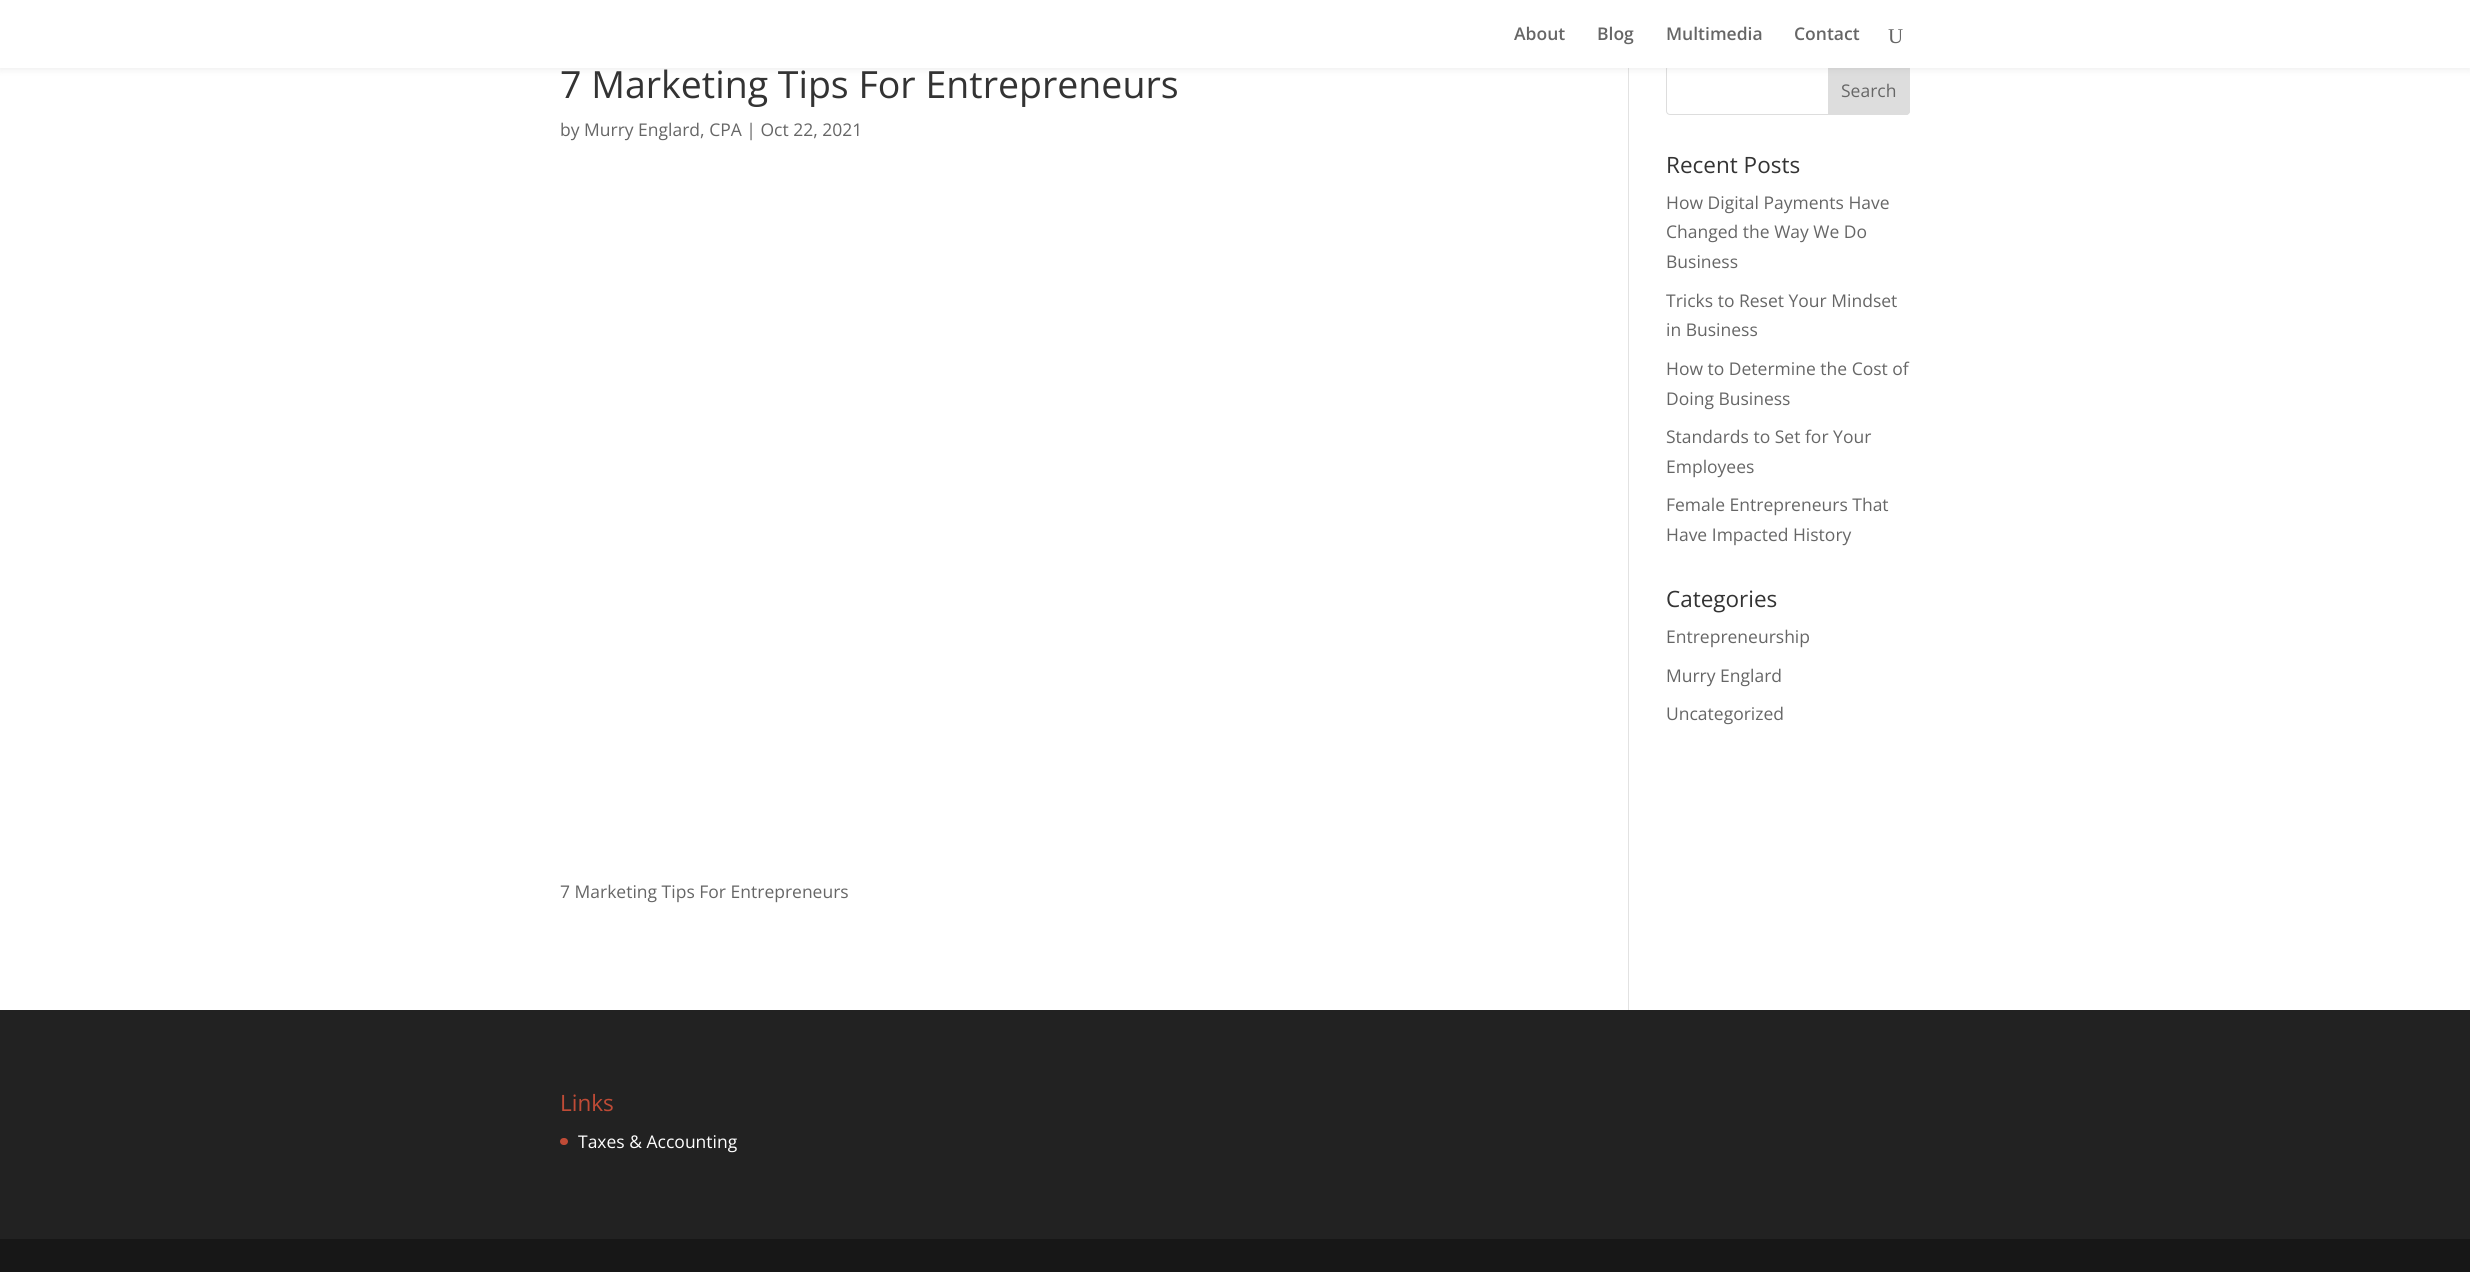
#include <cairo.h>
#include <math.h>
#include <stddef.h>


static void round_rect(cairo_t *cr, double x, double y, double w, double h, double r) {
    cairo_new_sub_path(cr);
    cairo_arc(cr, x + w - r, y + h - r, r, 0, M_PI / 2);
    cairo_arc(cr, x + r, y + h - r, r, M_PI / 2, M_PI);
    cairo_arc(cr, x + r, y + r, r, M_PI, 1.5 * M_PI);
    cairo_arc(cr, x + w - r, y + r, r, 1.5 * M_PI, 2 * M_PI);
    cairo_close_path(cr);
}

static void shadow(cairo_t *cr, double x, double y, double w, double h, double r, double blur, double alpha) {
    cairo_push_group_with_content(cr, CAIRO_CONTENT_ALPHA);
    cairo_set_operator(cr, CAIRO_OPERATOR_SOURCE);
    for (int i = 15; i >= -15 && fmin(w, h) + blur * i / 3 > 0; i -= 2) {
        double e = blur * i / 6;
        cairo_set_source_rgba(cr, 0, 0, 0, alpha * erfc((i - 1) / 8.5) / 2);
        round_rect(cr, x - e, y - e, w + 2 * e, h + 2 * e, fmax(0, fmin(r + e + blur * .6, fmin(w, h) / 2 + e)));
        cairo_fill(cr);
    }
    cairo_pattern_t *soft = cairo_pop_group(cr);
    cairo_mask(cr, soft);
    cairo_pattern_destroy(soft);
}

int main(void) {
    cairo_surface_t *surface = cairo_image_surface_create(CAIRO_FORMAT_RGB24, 2470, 1272);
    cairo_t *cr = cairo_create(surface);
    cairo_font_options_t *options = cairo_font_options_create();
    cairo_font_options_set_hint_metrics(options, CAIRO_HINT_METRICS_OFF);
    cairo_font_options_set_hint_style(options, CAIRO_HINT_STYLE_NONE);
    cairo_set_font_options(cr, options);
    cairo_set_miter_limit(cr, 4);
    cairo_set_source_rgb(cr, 1, 1, 1);
    cairo_paint(cr);
    cairo_set_source_rgb(cr, 0.886, 0.886, 0.886);
    cairo_rectangle(cr, 1628, 68, 1, 942);
    cairo_fill(cr);
    round_rect(cr, 1666.5, 65.5, 243, 49, 3.5);
    cairo_set_source_rgb(cr, 0.867, 0.867, 0.867);
    cairo_set_line_width(cr, 1);
    cairo_stroke(cr);
    cairo_new_path(cr);
    cairo_move_to(cr, 1828.5, 65.5);
    cairo_line_to(cr, 1906, 65.5);
    cairo_curve_to(cr, 1908, 65.5, 1909.5, 67, 1909.5, 69);
    cairo_line_to(cr, 1909.5, 111);
    cairo_curve_to(cr, 1909.5, 113, 1908, 114.5, 1906, 114.5);
    cairo_line_to(cr, 1828.5, 114.5);
    cairo_close_path(cr);
    cairo_fill_preserve(cr);
    cairo_stroke(cr);
    cairo_set_source_rgb(cr, 0, 0, 0);
    shadow(cr, 0, 0, 2470, 68, 0, 4.5, 0.1);
    cairo_set_source_rgb(cr, 1, 1, 1);
    cairo_rectangle(cr, 0, 0, 2470, 68);
    cairo_fill(cr);
    cairo_select_font_face(cr, "Open Sans SemiBold", CAIRO_FONT_SLANT_NORMAL, CAIRO_FONT_WEIGHT_NORMAL);
    cairo_set_font_size(cr, 17.5);
    cairo_set_source_rgb(cr, 0.4, 0.4, 0.4);
    cairo_move_to(cr, 1514, 40);
    cairo_show_text(cr, "About");
    cairo_move_to(cr, 1597, 40);
    cairo_show_text(cr, "Blog");
    cairo_move_to(cr, 1666, 40);
    cairo_show_text(cr, "Multimedia");
    cairo_move_to(cr, 1794, 40);
    cairo_show_text(cr, "Contact");
    cairo_select_font_face(cr, "Liberation Serif", CAIRO_FONT_SLANT_NORMAL, CAIRO_FONT_WEIGHT_NORMAL);
    cairo_set_font_size(cr, 21);
    cairo_move_to(cr, 1888, 43);
    cairo_show_text(cr, "U");
    cairo_select_font_face(cr, "Open Sans", CAIRO_FONT_SLANT_NORMAL, CAIRO_FONT_WEIGHT_NORMAL);
    cairo_set_font_size(cr, 37.5);
    cairo_set_source_rgb(cr, 0.2, 0.2, 0.2);
    cairo_move_to(cr, 560, 98);
    cairo_show_text(cr, "7 Marketing Tips For Entrepreneurs");
    cairo_set_font_size(cr, 17.5);
    cairo_set_source_rgb(cr, 0.4, 0.4, 0.4);
    cairo_move_to(cr, 560, 136);
    cairo_show_text(cr, "by Murry Englard, CPA | Oct 22, 2021");
    cairo_move_to(cr, 560, 898);
    cairo_show_text(cr, "7 Marketing Tips For Entrepreneurs");
    cairo_move_to(cr, 1841, 97);
    cairo_show_text(cr, "Search");
    cairo_set_font_size(cr, 22.5);
    cairo_set_source_rgb(cr, 0.2, 0.2, 0.2);
    cairo_move_to(cr, 1666, 173);
    cairo_show_text(cr, "Recent Posts");
    cairo_set_font_size(cr, 17.5);
    cairo_set_source_rgb(cr, 0.4, 0.4, 0.4);
    cairo_move_to(cr, 1666, 209);
    cairo_show_text(cr, "How Digital Payments Have");
    cairo_move_to(cr, 1666, 238);
    cairo_show_text(cr, "Changed the Way We Do");
    cairo_move_to(cr, 1666, 268);
    cairo_show_text(cr, "Business");
    cairo_move_to(cr, 1666, 307);
    cairo_show_text(cr, "Tricks to Reset Your Mindset");
    cairo_move_to(cr, 1666, 336);
    cairo_show_text(cr, "in Business");
    cairo_move_to(cr, 1666, 375);
    cairo_show_text(cr, "How to Determine the Cost of");
    cairo_move_to(cr, 1666, 405);
    cairo_show_text(cr, "Doing Business");
    cairo_move_to(cr, 1666, 443);
    cairo_show_text(cr, "Standards to Set for Your");
    cairo_move_to(cr, 1666, 473);
    cairo_show_text(cr, "Employees");
    cairo_move_to(cr, 1666, 511);
    cairo_show_text(cr, "Female Entrepreneurs That");
    cairo_move_to(cr, 1666, 541);
    cairo_show_text(cr, "Have Impacted History");
    cairo_set_font_size(cr, 22.5);
    cairo_set_source_rgb(cr, 0.2, 0.2, 0.2);
    cairo_move_to(cr, 1666, 607);
    cairo_show_text(cr, "Categories");
    cairo_set_font_size(cr, 17.5);
    cairo_set_source_rgb(cr, 0.4, 0.4, 0.4);
    cairo_move_to(cr, 1666, 643);
    cairo_show_text(cr, "Entrepreneurship");
    cairo_move_to(cr, 1666, 682);
    cairo_show_text(cr, "Murry Englard");
    cairo_move_to(cr, 1666, 720);
    cairo_show_text(cr, "Uncategorized");
    cairo_set_source_rgb(cr, 0.133, 0.133, 0.133);
    cairo_rectangle(cr, 0, 1010, 2470, 229);
    cairo_fill(cr);
    cairo_set_font_size(cr, 22.5);
    cairo_set_source_rgb(cr, 0.753, 0.294, 0.212);
    cairo_move_to(cr, 560, 1111);
    cairo_show_text(cr, "Links");
    round_rect(cr, 560, 1138, 8, 7, 3.5);
    cairo_fill(cr);
    cairo_set_font_size(cr, 17.5);
    cairo_set_source_rgb(cr, 1, 1, 1);
    cairo_move_to(cr, 578, 1148);
    cairo_show_text(cr, "Taxes & Accounting");
    cairo_set_source_rgb(cr, 0.09, 0.09, 0.09);
    cairo_rectangle(cr, 0, 1239, 2470, 33);
    cairo_fill(cr);
    cairo_surface_write_to_png(surface, "page.png");
    cairo_font_options_destroy(options);
    cairo_destroy(cr);
    cairo_surface_destroy(surface);
    return 0;
}
